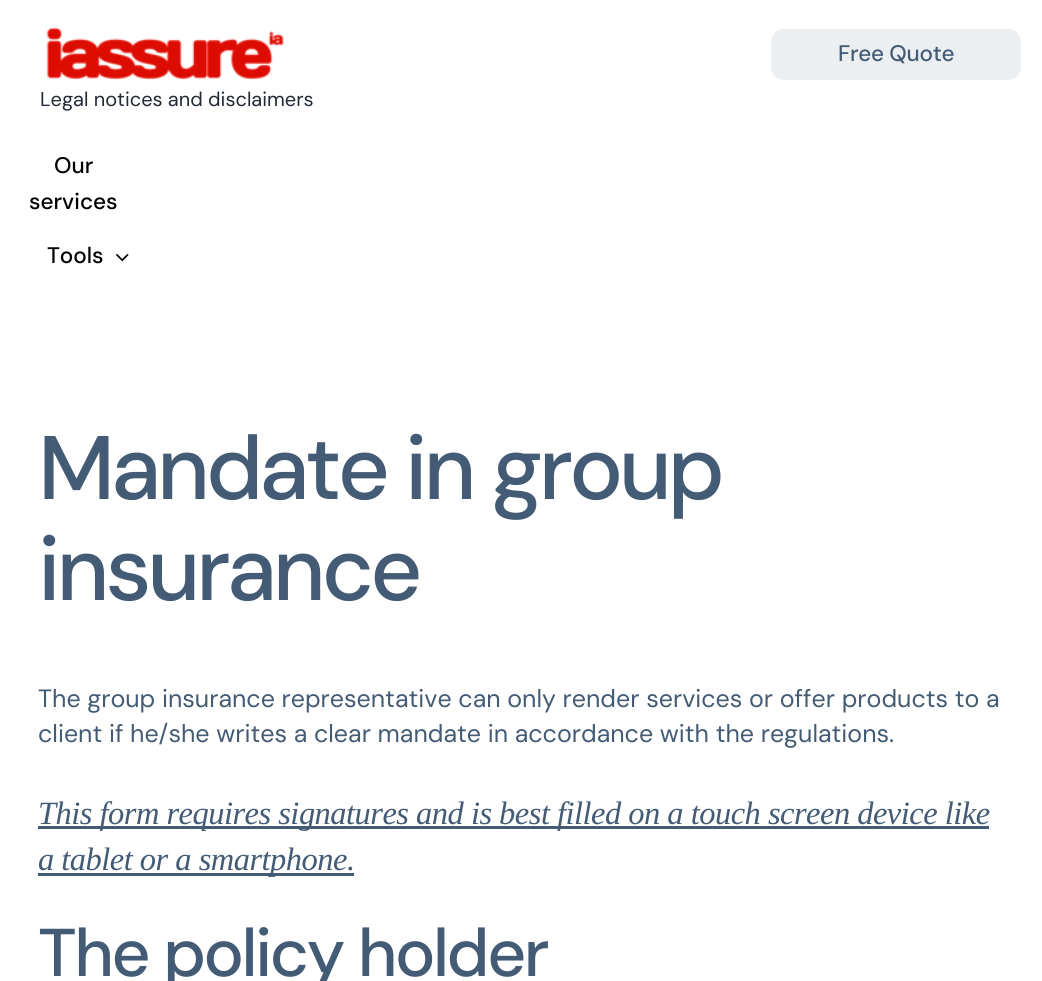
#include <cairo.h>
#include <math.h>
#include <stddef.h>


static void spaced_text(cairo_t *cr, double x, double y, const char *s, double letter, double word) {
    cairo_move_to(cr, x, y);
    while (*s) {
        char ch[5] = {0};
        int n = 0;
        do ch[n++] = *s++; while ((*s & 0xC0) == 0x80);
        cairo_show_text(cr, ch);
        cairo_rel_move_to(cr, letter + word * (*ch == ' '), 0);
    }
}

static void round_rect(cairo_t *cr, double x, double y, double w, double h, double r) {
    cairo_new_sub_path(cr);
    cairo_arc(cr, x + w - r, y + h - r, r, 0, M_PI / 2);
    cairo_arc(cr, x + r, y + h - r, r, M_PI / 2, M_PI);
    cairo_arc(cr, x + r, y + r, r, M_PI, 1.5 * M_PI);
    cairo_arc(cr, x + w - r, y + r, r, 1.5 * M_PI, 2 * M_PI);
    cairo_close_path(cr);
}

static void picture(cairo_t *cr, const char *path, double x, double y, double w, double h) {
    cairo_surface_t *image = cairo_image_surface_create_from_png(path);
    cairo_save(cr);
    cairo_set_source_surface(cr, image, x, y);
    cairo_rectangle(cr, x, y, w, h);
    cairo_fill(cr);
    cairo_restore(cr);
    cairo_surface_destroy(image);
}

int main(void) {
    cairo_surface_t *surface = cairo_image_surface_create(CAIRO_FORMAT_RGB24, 1042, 981);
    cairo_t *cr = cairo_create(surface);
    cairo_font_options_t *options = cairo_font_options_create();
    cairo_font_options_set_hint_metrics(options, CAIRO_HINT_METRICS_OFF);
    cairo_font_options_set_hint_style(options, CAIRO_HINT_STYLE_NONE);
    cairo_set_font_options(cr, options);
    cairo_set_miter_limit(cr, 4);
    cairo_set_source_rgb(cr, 1, 1, 1);
    cairo_paint(cr);
    picture(cr, "img1.png", 46, 27, 238, 53);
    cairo_set_source_rgb(cr, 0.925, 0.937, 0.945);
    round_rect(cr, 771, 29, 250, 51, 13);
    cairo_fill(cr);
    cairo_select_font_face(cr, "DM Sans Medium", CAIRO_FONT_SLANT_NORMAL, CAIRO_FONT_WEIGHT_NORMAL);
    cairo_set_font_size(cr, 22.5);
    cairo_set_source_rgb(cr, 0.263, 0.357, 0.459);
    spaced_text(cr, 838, 61, "Free Quote", -0.25, 0);
    cairo_select_font_face(cr, "DM Sans", CAIRO_FONT_SLANT_NORMAL, CAIRO_FONT_WEIGHT_NORMAL);
    cairo_set_font_size(cr, 20);
    cairo_set_source_rgb(cr, 0.129, 0.161, 0.204);
    cairo_move_to(cr, 40, 106);
    cairo_show_text(cr, "Legal notices and disclaimers");
    cairo_select_font_face(cr, "DM Sans Medium", CAIRO_FONT_SLANT_NORMAL, CAIRO_FONT_WEIGHT_NORMAL);
    cairo_set_font_size(cr, 22.5);
    cairo_set_source_rgb(cr, 0, 0, 0);
    cairo_move_to(cr, 54, 173);
    cairo_show_text(cr, "Our");
    cairo_move_to(cr, 29, 209);
    cairo_show_text(cr, "services");
    cairo_move_to(cr, 47, 263);
    cairo_show_text(cr, "Tools");
    picture(cr, "img2.png", 116, 254, 13, 8);
    cairo_set_font_size(cr, 90);
    cairo_set_source_rgb(cr, 0.263, 0.357, 0.459);
    spaced_text(cr, 38, 499, "Mandate in group", -4, 0);
    spaced_text(cr, 38, 600, "insurance", -4, 0);
    cairo_select_font_face(cr, "DM Sans", CAIRO_FONT_SLANT_NORMAL, CAIRO_FONT_WEIGHT_NORMAL);
    cairo_set_font_size(cr, 25);
    cairo_move_to(cr, 38, 707);
    cairo_show_text(cr, "The group insurance representative can only render services or offer products to a");
    cairo_move_to(cr, 38, 742);
    cairo_show_text(cr, "client if he/she writes a clear mandate in accordance with the regulations.");
    cairo_rectangle(cr, 38, 826, 951, 3);
    cairo_fill(cr);
    cairo_select_font_face(cr, "Liberation Serif", CAIRO_FONT_SLANT_ITALIC, CAIRO_FONT_WEIGHT_NORMAL);
    cairo_set_font_size(cr, 32.5);
    spaced_text(cr, 38, 824, "This form requires signatures and is best filled on a touch screen device like", -0.52, 0);
    cairo_rectangle(cr, 38, 873, 316, 3);
    cairo_fill(cr);
    spaced_text(cr, 38, 870, "a tablet or a smartphone.", -0.52, 0);
    cairo_select_font_face(cr, "DM Sans Medium", CAIRO_FONT_SLANT_NORMAL, CAIRO_FONT_WEIGHT_NORMAL);
    cairo_set_font_size(cr, 67.5);
    spaced_text(cr, 38, 976, "The policy holder", -2.4, 0);
    cairo_surface_write_to_png(surface, "page.png");
    cairo_font_options_destroy(options);
    cairo_destroy(cr);
    cairo_surface_destroy(surface);
    return 0;
}
